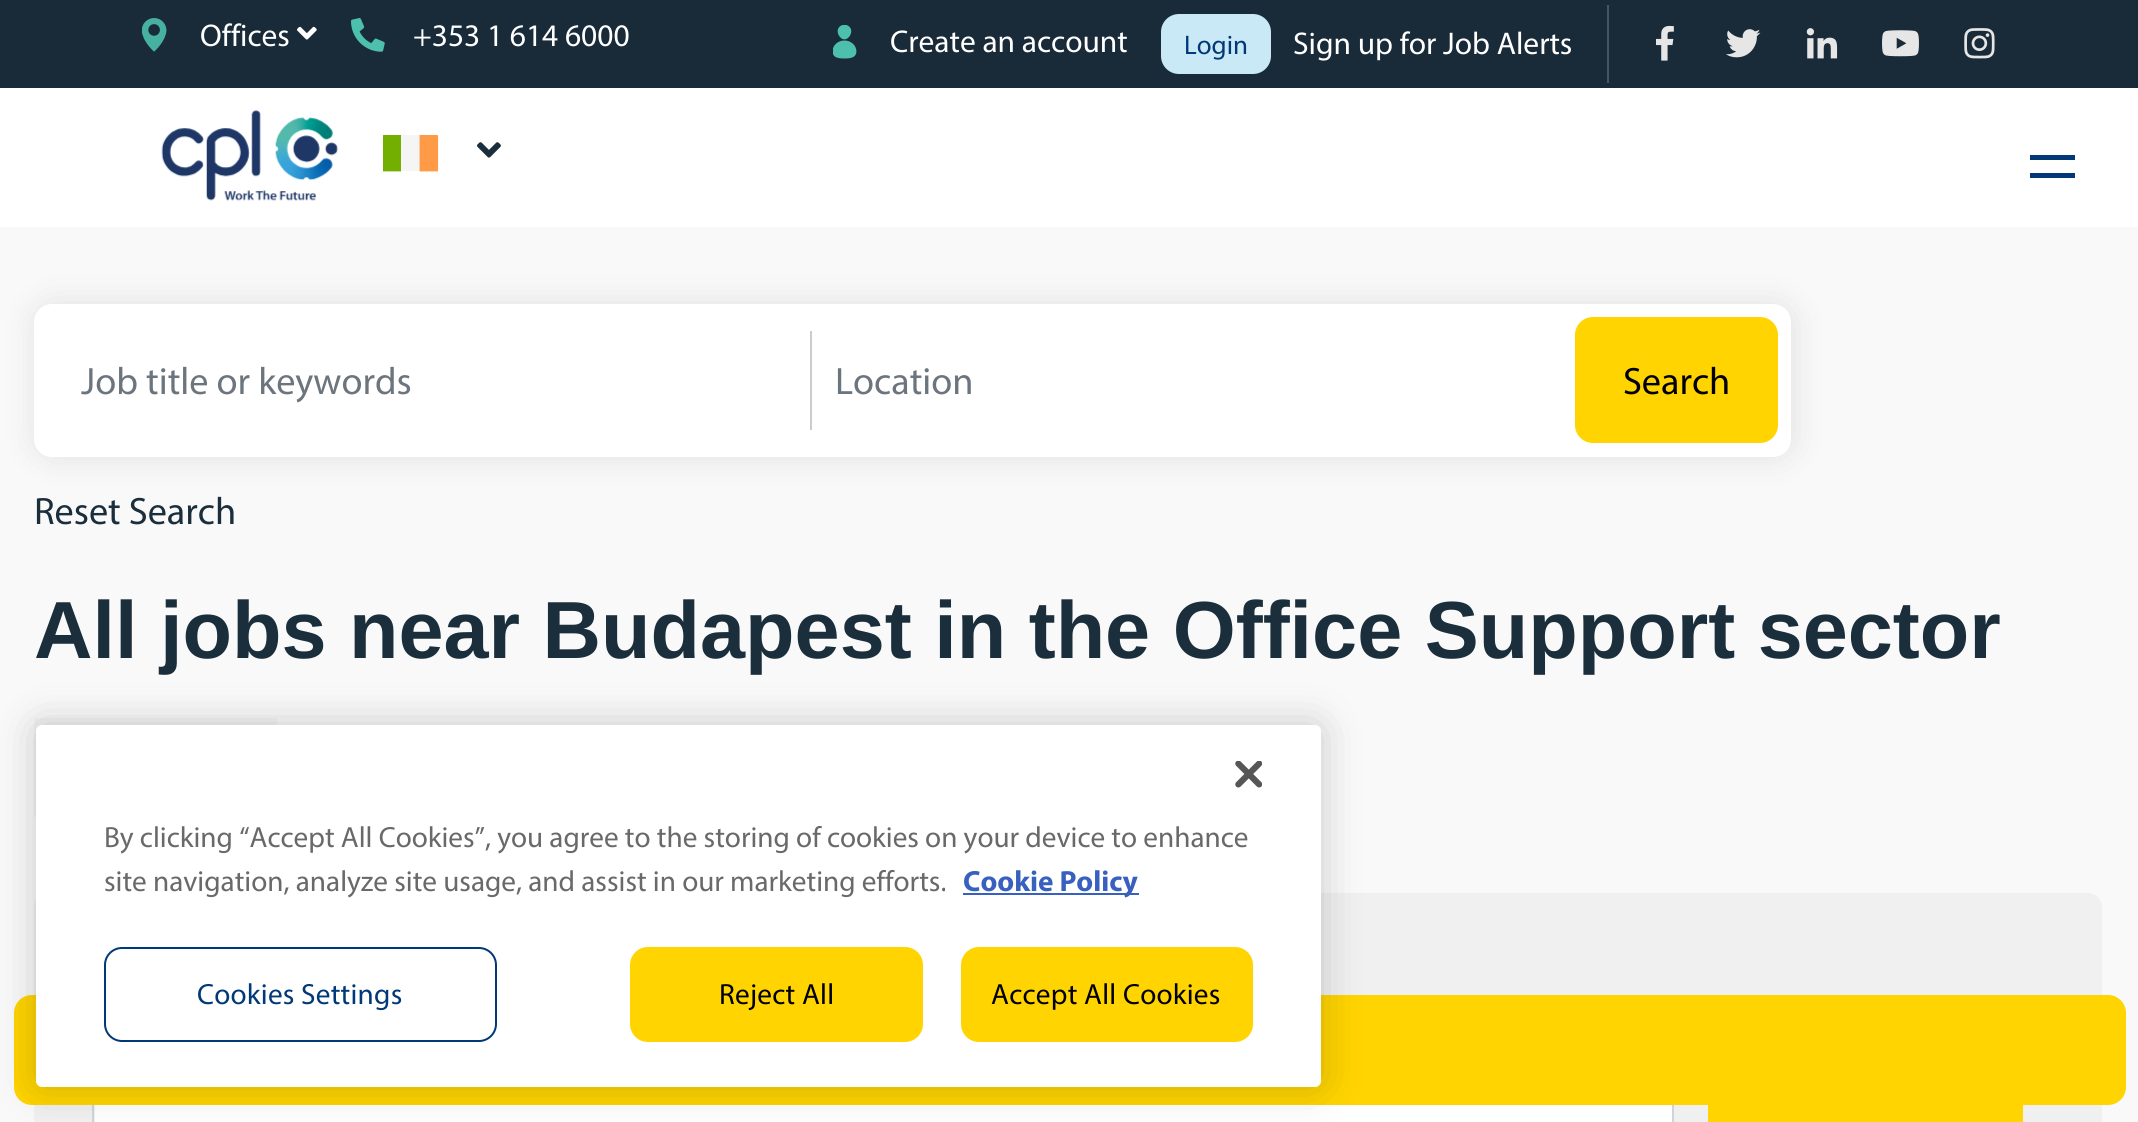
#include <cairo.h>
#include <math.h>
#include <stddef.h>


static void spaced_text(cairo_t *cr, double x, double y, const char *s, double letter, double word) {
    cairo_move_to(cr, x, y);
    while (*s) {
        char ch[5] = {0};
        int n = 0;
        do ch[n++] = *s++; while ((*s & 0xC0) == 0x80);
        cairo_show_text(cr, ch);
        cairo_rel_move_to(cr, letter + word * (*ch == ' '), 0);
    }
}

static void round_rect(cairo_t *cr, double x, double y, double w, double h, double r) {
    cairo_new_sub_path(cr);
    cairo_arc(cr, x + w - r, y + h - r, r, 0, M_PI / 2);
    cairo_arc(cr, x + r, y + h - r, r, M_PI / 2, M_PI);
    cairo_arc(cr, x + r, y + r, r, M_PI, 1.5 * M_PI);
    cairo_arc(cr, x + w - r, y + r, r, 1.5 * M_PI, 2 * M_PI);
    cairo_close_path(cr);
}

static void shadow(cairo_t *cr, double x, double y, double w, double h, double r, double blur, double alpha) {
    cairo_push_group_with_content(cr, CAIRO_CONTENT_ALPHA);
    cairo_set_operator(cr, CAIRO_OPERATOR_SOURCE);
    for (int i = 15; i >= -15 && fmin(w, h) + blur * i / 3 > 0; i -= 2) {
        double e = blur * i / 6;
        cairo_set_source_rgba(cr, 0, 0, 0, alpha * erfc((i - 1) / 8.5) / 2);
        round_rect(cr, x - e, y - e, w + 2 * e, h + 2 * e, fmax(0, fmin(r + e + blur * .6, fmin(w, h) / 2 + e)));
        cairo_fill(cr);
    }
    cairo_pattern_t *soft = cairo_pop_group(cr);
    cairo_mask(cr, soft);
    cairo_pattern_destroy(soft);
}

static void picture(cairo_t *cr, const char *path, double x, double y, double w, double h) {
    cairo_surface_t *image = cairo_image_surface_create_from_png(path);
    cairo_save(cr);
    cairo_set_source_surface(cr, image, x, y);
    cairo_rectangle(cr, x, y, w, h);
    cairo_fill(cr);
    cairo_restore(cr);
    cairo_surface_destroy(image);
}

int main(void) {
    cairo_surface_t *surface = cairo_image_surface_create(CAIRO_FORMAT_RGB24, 2138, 1122);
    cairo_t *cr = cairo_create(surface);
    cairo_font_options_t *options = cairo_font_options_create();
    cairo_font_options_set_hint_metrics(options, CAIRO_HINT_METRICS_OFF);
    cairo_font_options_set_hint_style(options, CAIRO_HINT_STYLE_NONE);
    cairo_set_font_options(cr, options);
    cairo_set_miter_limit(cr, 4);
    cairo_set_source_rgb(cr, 1, 1, 1);
    cairo_paint(cr);
    cairo_set_source_rgb(cr, 0.098, 0.165, 0.22);
    cairo_rectangle(cr, 0, 0, 2138, 88);
    cairo_fill(cr);
    picture(cr, "img1.png", 142, 18, 25, 34);
    cairo_select_font_face(cr, "Myriad", CAIRO_FONT_SLANT_NORMAL, CAIRO_FONT_WEIGHT_NORMAL);
    cairo_set_font_size(cr, 31.5);
    cairo_set_source_rgb(cr, 1, 1, 1);
    cairo_move_to(cr, 200, 46);
    cairo_show_text(cr, "Offices");
    picture(cr, "img2.png", 297, 26, 20, 14);
    picture(cr, "img3.png", 351, 18, 34, 34);
    cairo_move_to(cr, 413, 46);
    cairo_show_text(cr, "+353 1 614 6000");
    picture(cr, "img4.png", 833, 25, 24, 34);
    cairo_move_to(cr, 890, 52);
    cairo_show_text(cr, "Create an account");
    cairo_set_source_rgb(cr, 0.788, 0.914, 0.961);
    round_rect(cr, 1161, 14, 110, 60, 18);
    cairo_fill(cr);
    cairo_set_font_size(cr, 27);
    cairo_set_source_rgb(cr, 0.004, 0.22, 0.471);
    cairo_move_to(cr, 1184, 54);
    cairo_show_text(cr, "Login");
    cairo_set_font_size(cr, 31.5);
    cairo_set_source_rgb(cr, 1, 1, 1);
    cairo_move_to(cr, 1293, 54);
    cairo_show_text(cr, "Sign up for Job Alerts");
    cairo_set_source_rgb(cr, 0.278, 0.333, 0.376);
    cairo_rectangle(cr, 1607, 5, 2, 78);
    cairo_fill(cr);
    picture(cr, "img5.png", 1656, 25, 18, 36);
    picture(cr, "img6.png", 1725, 29, 36, 29);
    picture(cr, "img7.png", 1806, 28, 32, 31);
    picture(cr, "img8.png", 1882, 30, 37, 27);
    picture(cr, "img9.png", 1964, 28, 31, 31);
    picture(cr, "img10.png", 161, 110, 177, 91);
    picture(cr, "img11.png", 383, 135, 56, 37);
    picture(cr, "img12.png", 477, 142, 24, 16);
    cairo_set_source_rgb(cr, 0.004, 0.22, 0.471);
    cairo_rectangle(cr, 2030, 155, 45, 5);
    cairo_fill(cr);
    cairo_rectangle(cr, 2030, 173, 45, 5);
    cairo_fill(cr);
    cairo_set_source_rgb(cr, 0.976, 0.976, 0.976);
    cairo_rectangle(cr, 0, 227, 2138, 895);
    cairo_fill(cr);
    cairo_set_source_rgb(cr, 0, 0, 0);
    shadow(cr, 36, 304, 1757, 153, 18, 17, 0.1);
    cairo_set_source_rgb(cr, 1, 1, 1);
    round_rect(cr, 34, 304, 1757, 153, 18);
    cairo_fill(cr);
    cairo_set_source_rgb(cr, 0.8, 0.8, 0.8);
    cairo_rectangle(cr, 810, 331, 2, 99);
    cairo_fill(cr);
    cairo_set_font_size(cr, 38.25);
    cairo_set_source_rgb(cr, 0.424, 0.459, 0.49);
    cairo_move_to(cr, 81, 394);
    cairo_show_text(cr, "Job title or keywords");
    cairo_move_to(cr, 835, 394);
    cairo_show_text(cr, "Location");
    cairo_set_source_rgb(cr, 1, 0.831, 0);
    round_rect(cr, 1576, 318, 201, 124, 17);
    cairo_fill_preserve(cr);
    cairo_stroke(cr);
    cairo_set_source_rgb(cr, 0, 0, 0);
    cairo_move_to(cr, 1623, 394);
    cairo_show_text(cr, "Search");
    cairo_set_source_rgb(cr, 0.106, 0.18, 0.235);
    cairo_move_to(cr, 34, 524);
    cairo_show_text(cr, "Reset Search");
    cairo_select_font_face(cr, "Liberation Sans", CAIRO_FONT_SLANT_NORMAL, CAIRO_FONT_WEIGHT_BOLD);
    cairo_set_font_size(cr, 81);
    cairo_move_to(cr, 34, 658);
    cairo_show_text(cr, "All jobs near Budapest in the Office Support sector");
    cairo_set_source_rgb(cr, 0.949, 0.949, 0.949);
    cairo_rectangle(cr, 34, 718, 243, 99);
    cairo_fill(cr);
    cairo_set_source_rgb(cr, 0.941, 0.941, 0.941);
    round_rect(cr, 34, 893, 2068, 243, 14);
    cairo_fill(cr);
    cairo_set_source_rgb(cr, 1, 1, 1);
    cairo_rectangle(cr, 95, 1105, 1577, 17);
    cairo_fill(cr);
    cairo_rectangle(cr, 93, 1036, 1580, 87);
    cairo_set_source_rgb(cr, 0.808, 0.831, 0.855);
    cairo_stroke(cr);
    cairo_set_source_rgb(cr, 1, 0.831, 0);
    cairo_rectangle(cr, 1710, 1105, 311, 17);
    cairo_fill(cr);
    cairo_rectangle(cr, 1709, 1036, 313, 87);
    cairo_stroke(cr);
    round_rect(cr, 15, 996, 2110, 108, 17);
    cairo_fill_preserve(cr);
    cairo_stroke(cr);
    cairo_set_source_rgb(cr, 0, 0, 0);
    shadow(cr, 36, 725, 1285, 362, 6, 20, 0.2);
    cairo_set_source_rgb(cr, 1, 1, 1);
    round_rect(cr, 36, 725, 1285, 362, 6);
    cairo_fill(cr);
    picture(cr, "img13.png", 1235, 761, 27, 27);
    cairo_select_font_face(cr, "Myriad", CAIRO_FONT_SLANT_NORMAL, CAIRO_FONT_WEIGHT_NORMAL);
    cairo_set_font_size(cr, 29.25);
    cairo_set_source_rgb(cr, 0.412, 0.412, 0.412);
    cairo_move_to(cr, 104, 847);
    cairo_show_text(cr, "By clicking “Accept All Cookies”, you agree to the storing of cookies on your device to enhance");
    cairo_move_to(cr, 104, 891);
    cairo_show_text(cr, "site navigation, analyze site usage, and assist in our marketing efforts.");
    cairo_set_source_rgb(cr, 0.22, 0.376, 0.745);
    cairo_rectangle(cr, 963, 893, 176, 2);
    cairo_fill(cr);
    cairo_select_font_face(cr, "Myriad", CAIRO_FONT_SLANT_NORMAL, CAIRO_FONT_WEIGHT_BOLD);
    cairo_move_to(cr, 963, 891);
    cairo_show_text(cr, "Cookie Policy");
    round_rect(cr, 105, 948, 391, 93, 17);
    cairo_set_source_rgb(cr, 0.004, 0.22, 0.471);
    cairo_stroke(cr);
    cairo_select_font_face(cr, "Myriad", CAIRO_FONT_SLANT_NORMAL, CAIRO_FONT_WEIGHT_NORMAL);
    spaced_text(cr, 197, 1004, "Cookies Settings", 0.25, 0);
    cairo_set_source_rgb(cr, 1, 0.831, 0);
    round_rect(cr, 631, 948, 291, 93, 17);
    cairo_fill_preserve(cr);
    cairo_stroke(cr);
    cairo_set_source_rgb(cr, 0, 0, 0);
    spaced_text(cr, 719, 1004, "Reject All", 0.25, 0);
    cairo_set_source_rgb(cr, 1, 0.831, 0);
    round_rect(cr, 962, 948, 290, 93, 17);
    cairo_fill_preserve(cr);
    cairo_stroke(cr);
    cairo_set_source_rgb(cr, 0, 0, 0);
    spaced_text(cr, 991, 1004, "Accept All Cookies", 0.25, 0);
    cairo_surface_write_to_png(surface, "page.png");
    cairo_font_options_destroy(options);
    cairo_destroy(cr);
    cairo_surface_destroy(surface);
    return 0;
}
